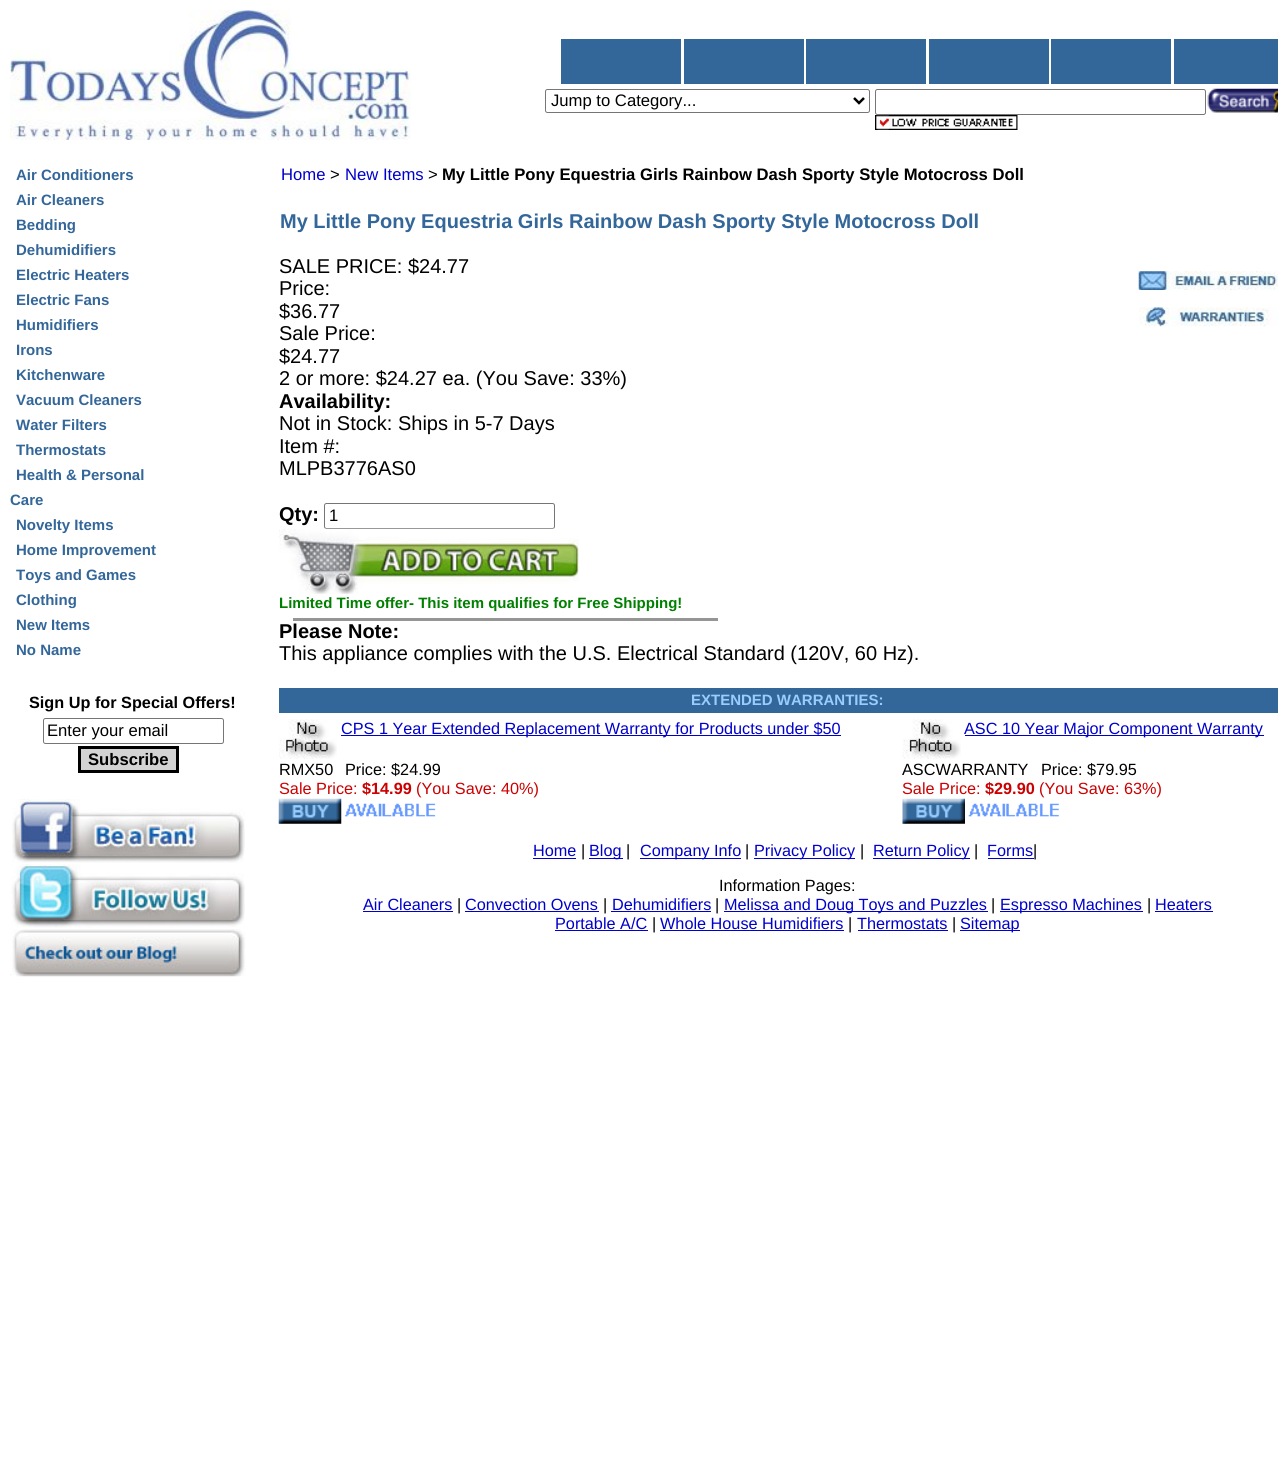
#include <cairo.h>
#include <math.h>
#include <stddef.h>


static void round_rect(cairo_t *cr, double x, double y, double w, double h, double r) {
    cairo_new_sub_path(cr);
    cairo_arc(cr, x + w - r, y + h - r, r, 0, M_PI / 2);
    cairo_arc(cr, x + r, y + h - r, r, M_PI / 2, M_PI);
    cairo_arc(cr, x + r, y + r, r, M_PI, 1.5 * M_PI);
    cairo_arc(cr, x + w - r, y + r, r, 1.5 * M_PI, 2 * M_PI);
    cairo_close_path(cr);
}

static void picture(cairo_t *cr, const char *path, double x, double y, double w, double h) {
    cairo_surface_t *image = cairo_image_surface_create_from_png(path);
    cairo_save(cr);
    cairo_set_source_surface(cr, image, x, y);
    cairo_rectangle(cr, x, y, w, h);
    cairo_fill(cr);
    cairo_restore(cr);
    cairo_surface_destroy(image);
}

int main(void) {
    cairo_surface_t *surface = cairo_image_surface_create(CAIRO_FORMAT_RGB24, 1278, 1459);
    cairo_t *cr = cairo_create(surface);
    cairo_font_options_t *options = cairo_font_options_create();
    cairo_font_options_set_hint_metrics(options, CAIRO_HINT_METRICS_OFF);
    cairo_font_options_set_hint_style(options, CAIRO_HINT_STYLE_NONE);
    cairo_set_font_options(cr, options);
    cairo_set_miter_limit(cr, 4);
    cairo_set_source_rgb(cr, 1, 1, 1);
    cairo_paint(cr);
    picture(cr, "img1.png", 10, 10, 401, 130);
    cairo_set_source_rgb(cr, 0.2, 0.4, 0.6);
    cairo_rectangle(cr, 561, 39, 120, 45);
    cairo_fill(cr);
    cairo_rectangle(cr, 684, 39, 120, 45);
    cairo_fill(cr);
    cairo_rectangle(cr, 806, 39, 120, 45);
    cairo_fill(cr);
    cairo_rectangle(cr, 929, 39, 120, 45);
    cairo_fill(cr);
    cairo_rectangle(cr, 1051, 39, 120, 45);
    cairo_fill(cr);
    cairo_rectangle(cr, 1174, 39, 104, 45);
    cairo_fill(cr);
    round_rect(cr, 545.5, 89.5, 324, 23, 2);
    cairo_set_source_rgb(cr, 0.463, 0.463, 0.463);
    cairo_set_line_width(cr, 1);
    cairo_stroke(cr);
    cairo_new_path(cr);
    cairo_move_to(cr, 854, 98);
    cairo_line_to(cr, 859, 103);
    cairo_line_to(cr, 864, 98);
    cairo_set_source_rgb(cr, 0, 0, 0);
    cairo_set_line_width(cr, 2.5);
    cairo_stroke(cr);
    cairo_select_font_face(cr, "Liberation Sans", CAIRO_FONT_SLANT_NORMAL, CAIRO_FONT_WEIGHT_NORMAL);
    cairo_set_font_size(cr, 16.65);
    cairo_move_to(cr, 551, 106);
    cairo_show_text(cr, "Jump to Category...");
    round_rect(cr, 875.5, 89.5, 330, 25, 2);
    cairo_set_source_rgb(cr, 0.463, 0.463, 0.463);
    cairo_set_line_width(cr, 1);
    cairo_stroke(cr);
    picture(cr, "img2.png", 1207, 88, 71, 25);
    picture(cr, "img3.png", 875, 115, 143, 15);
    cairo_select_font_face(cr, "Liberation Sans", CAIRO_FONT_SLANT_NORMAL, CAIRO_FONT_WEIGHT_BOLD);
    cairo_set_font_size(cr, 15);
    cairo_set_source_rgb(cr, 0.2, 0.4, 0.6);
    cairo_move_to(cr, 16, 180);
    cairo_show_text(cr, "Air Conditioners");
    cairo_move_to(cr, 16, 205);
    cairo_show_text(cr, "Air Cleaners");
    cairo_move_to(cr, 16, 230);
    cairo_show_text(cr, "Bedding");
    cairo_move_to(cr, 16, 255);
    cairo_show_text(cr, "Dehumidifiers");
    cairo_move_to(cr, 16, 280);
    cairo_show_text(cr, "Electric Heaters");
    cairo_move_to(cr, 16, 305);
    cairo_show_text(cr, "Electric Fans");
    cairo_move_to(cr, 16, 330);
    cairo_show_text(cr, "Humidifiers");
    cairo_move_to(cr, 16, 355);
    cairo_show_text(cr, "Irons");
    cairo_move_to(cr, 16, 380);
    cairo_show_text(cr, "Kitchenware");
    cairo_move_to(cr, 16, 405);
    cairo_show_text(cr, "Vacuum Cleaners");
    cairo_move_to(cr, 16, 430);
    cairo_show_text(cr, "Water Filters");
    cairo_move_to(cr, 16, 455);
    cairo_show_text(cr, "Thermostats");
    cairo_move_to(cr, 16, 480);
    cairo_show_text(cr, "Health & Personal");
    cairo_move_to(cr, 10, 505);
    cairo_show_text(cr, "Care");
    cairo_move_to(cr, 16, 530);
    cairo_show_text(cr, "Novelty Items");
    cairo_move_to(cr, 16, 555);
    cairo_show_text(cr, "Home Improvement");
    cairo_move_to(cr, 16, 580);
    cairo_show_text(cr, "Toys and Games");
    cairo_move_to(cr, 16, 605);
    cairo_show_text(cr, "Clothing");
    cairo_move_to(cr, 16, 630);
    cairo_show_text(cr, "New Items");
    cairo_move_to(cr, 16, 655);
    cairo_show_text(cr, "No Name");
    cairo_set_font_size(cr, 16.25);
    cairo_set_source_rgb(cr, 0, 0, 0);
    cairo_move_to(cr, 29, 708);
    cairo_show_text(cr, "Sign Up for Special Offers!");
    round_rect(cr, 43.5, 718.5, 180, 25, 2);
    cairo_set_source_rgb(cr, 0.463, 0.463, 0.463);
    cairo_stroke(cr);
    cairo_select_font_face(cr, "Liberation Sans", CAIRO_FONT_SLANT_NORMAL, CAIRO_FONT_WEIGHT_NORMAL);
    cairo_set_font_size(cr, 16.65);
    cairo_set_source_rgb(cr, 0, 0, 0);
    cairo_move_to(cr, 47, 736);
    cairo_show_text(cr, "Enter your email");
    cairo_set_source_rgb(cr, 0.827, 0.827, 0.827);
    cairo_rectangle(cr, 79.5, 747.5, 98, 24);
    cairo_fill_preserve(cr);
    cairo_set_source_rgb(cr, 0, 0, 0);
    cairo_set_line_width(cr, 3);
    cairo_stroke(cr);
    cairo_select_font_face(cr, "Liberation Sans", CAIRO_FONT_SLANT_NORMAL, CAIRO_FONT_WEIGHT_BOLD);
    cairo_move_to(cr, 88, 765);
    cairo_show_text(cr, "Subscribe");
    picture(cr, "img4.png", 12, 799, 233, 64);
    picture(cr, "img5.png", 11, 863, 234, 65);
    picture(cr, "img6.png", 10, 929, 236, 48);
    cairo_select_font_face(cr, "Liberation Sans", CAIRO_FONT_SLANT_NORMAL, CAIRO_FONT_WEIGHT_NORMAL);
    cairo_set_source_rgb(cr, 0, 0, 0.8);
    cairo_move_to(cr, 281, 180);
    cairo_show_text(cr, "Home");
    cairo_set_source_rgb(cr, 0, 0, 0);
    cairo_move_to(cr, 330, 180);
    cairo_show_text(cr, ">");
    cairo_set_source_rgb(cr, 0, 0, 0.8);
    cairo_move_to(cr, 345, 180);
    cairo_show_text(cr, "New Items");
    cairo_set_source_rgb(cr, 0, 0, 0);
    cairo_move_to(cr, 428, 180);
    cairo_show_text(cr, ">");
    cairo_select_font_face(cr, "Liberation Sans", CAIRO_FONT_SLANT_NORMAL, CAIRO_FONT_WEIGHT_BOLD);
    cairo_move_to(cr, 442, 180);
    cairo_show_text(cr, "My Little Pony Equestria Girls Rainbow Dash Sporty Style Motocross Doll");
    cairo_set_font_size(cr, 20);
    cairo_set_source_rgb(cr, 0.2, 0.4, 0.6);
    cairo_move_to(cr, 280, 228);
    cairo_show_text(cr, "My Little Pony Equestria Girls Rainbow Dash Sporty Style Motocross Doll");
    cairo_select_font_face(cr, "Liberation Sans", CAIRO_FONT_SLANT_NORMAL, CAIRO_FONT_WEIGHT_NORMAL);
    cairo_set_source_rgb(cr, 0, 0, 0);
    cairo_move_to(cr, 279, 273);
    cairo_show_text(cr, "SALE PRICE: $24.77");
    cairo_move_to(cr, 279, 295);
    cairo_show_text(cr, "Price:");
    cairo_move_to(cr, 279, 318);
    cairo_show_text(cr, "$36.77");
    cairo_move_to(cr, 279, 340);
    cairo_show_text(cr, "Sale Price:");
    cairo_move_to(cr, 279, 363);
    cairo_show_text(cr, "$24.77");
    cairo_move_to(cr, 279, 385);
    cairo_show_text(cr, "2 or more: $24.27 ea. (You Save: 33%)");
    cairo_select_font_face(cr, "Liberation Sans", CAIRO_FONT_SLANT_NORMAL, CAIRO_FONT_WEIGHT_BOLD);
    cairo_move_to(cr, 279, 408);
    cairo_show_text(cr, "Availability:");
    cairo_select_font_face(cr, "Liberation Sans", CAIRO_FONT_SLANT_NORMAL, CAIRO_FONT_WEIGHT_NORMAL);
    cairo_move_to(cr, 279, 430);
    cairo_show_text(cr, "Not in Stock: Ships in 5-7 Days");
    cairo_move_to(cr, 279, 453);
    cairo_show_text(cr, "Item #:");
    cairo_move_to(cr, 279, 475);
    cairo_show_text(cr, "MLPB3776AS0");
    cairo_select_font_face(cr, "Liberation Sans", CAIRO_FONT_SLANT_NORMAL, CAIRO_FONT_WEIGHT_BOLD);
    cairo_move_to(cr, 279, 521);
    cairo_show_text(cr, "Qty:");
    round_rect(cr, 324.5, 503.5, 230, 25, 2);
    cairo_set_source_rgb(cr, 0.463, 0.463, 0.463);
    cairo_set_line_width(cr, 1);
    cairo_stroke(cr);
    cairo_select_font_face(cr, "Liberation Sans", CAIRO_FONT_SLANT_NORMAL, CAIRO_FONT_WEIGHT_NORMAL);
    cairo_set_font_size(cr, 16.65);
    cairo_set_source_rgb(cr, 0, 0, 0);
    cairo_move_to(cr, 329, 521);
    cairo_show_text(cr, "1");
    picture(cr, "img7.png", 279, 528, 300, 66);
    cairo_select_font_face(cr, "Liberation Sans", CAIRO_FONT_SLANT_NORMAL, CAIRO_FONT_WEIGHT_BOLD);
    cairo_set_font_size(cr, 15);
    cairo_set_source_rgb(cr, 0, 0.502, 0);
    cairo_move_to(cr, 279, 608);
    cairo_show_text(cr, "Limited Time offer- This item qualifies for Free Shipping!");
    cairo_set_source_rgb(cr, 0.584, 0.584, 0.584);
    cairo_rectangle(cr, 293, 618, 425, 3);
    cairo_fill(cr);
    picture(cr, "img8.png", 1138, 271, 140, 19);
    picture(cr, "img9.png", 1139, 307, 139, 20);
    cairo_set_font_size(cr, 20);
    cairo_set_source_rgb(cr, 0, 0, 0);
    cairo_move_to(cr, 279, 638);
    cairo_show_text(cr, "Please Note:");
    cairo_select_font_face(cr, "Liberation Sans", CAIRO_FONT_SLANT_NORMAL, CAIRO_FONT_WEIGHT_NORMAL);
    cairo_move_to(cr, 279, 660);
    cairo_show_text(cr, "This appliance complies with the U.S. Electrical Standard (120V, 60 Hz).");
    cairo_set_source_rgb(cr, 0.2, 0.4, 0.6);
    cairo_rectangle(cr, 279, 688, 999, 25);
    cairo_fill(cr);
    cairo_select_font_face(cr, "Liberation Sans", CAIRO_FONT_SLANT_NORMAL, CAIRO_FONT_WEIGHT_BOLD);
    cairo_set_font_size(cr, 15);
    cairo_set_source_rgb(cr, 0.6, 0.8, 1);
    cairo_move_to(cr, 691, 705);
    cairo_show_text(cr, "EXTENDED WARRANTIES:");
    picture(cr, "img10.png", 279, 719, 58, 40);
    cairo_set_source_rgb(cr, 0, 0, 0.8);
    cairo_rectangle(cr, 341, 735, 500, 1);
    cairo_fill(cr);
    cairo_select_font_face(cr, "Liberation Sans", CAIRO_FONT_SLANT_NORMAL, CAIRO_FONT_WEIGHT_NORMAL);
    cairo_set_font_size(cr, 16.25);
    cairo_move_to(cr, 341, 734);
    cairo_show_text(cr, "CPS 1 Year Extended Replacement Warranty for Products under $50");
    cairo_set_source_rgb(cr, 0, 0, 0);
    cairo_move_to(cr, 279, 775);
    cairo_show_text(cr, "RMX50");
    cairo_move_to(cr, 345, 775);
    cairo_show_text(cr, "Price: $24.99");
    cairo_set_source_rgb(cr, 0.8, 0, 0);
    cairo_move_to(cr, 279, 794);
    cairo_show_text(cr, "Sale Price:");
    cairo_select_font_face(cr, "Liberation Sans", CAIRO_FONT_SLANT_NORMAL, CAIRO_FONT_WEIGHT_BOLD);
    cairo_move_to(cr, 362, 794);
    cairo_show_text(cr, "$14.99");
    cairo_select_font_face(cr, "Liberation Sans", CAIRO_FONT_SLANT_NORMAL, CAIRO_FONT_WEIGHT_NORMAL);
    cairo_move_to(cr, 416, 794);
    cairo_show_text(cr, "(You Save: 40%)");
    picture(cr, "img11.png", 278, 798, 64, 26);
    picture(cr, "img12.png", 344, 803, 92, 14);
    picture(cr, "img13.png", 902, 719, 59, 40);
    cairo_set_source_rgb(cr, 0, 0, 0.8);
    cairo_rectangle(cr, 965, 735, 299, 1);
    cairo_fill(cr);
    cairo_move_to(cr, 964, 734);
    cairo_show_text(cr, "ASC 10 Year Major Component Warranty");
    cairo_set_source_rgb(cr, 0, 0, 0);
    cairo_move_to(cr, 902, 775);
    cairo_show_text(cr, "ASCWARRANTY");
    cairo_move_to(cr, 1041, 775);
    cairo_show_text(cr, "Price: $79.95");
    cairo_set_source_rgb(cr, 0.8, 0, 0);
    cairo_move_to(cr, 902, 794);
    cairo_show_text(cr, "Sale Price:");
    cairo_select_font_face(cr, "Liberation Sans", CAIRO_FONT_SLANT_NORMAL, CAIRO_FONT_WEIGHT_BOLD);
    cairo_move_to(cr, 985, 794);
    cairo_show_text(cr, "$29.90");
    cairo_select_font_face(cr, "Liberation Sans", CAIRO_FONT_SLANT_NORMAL, CAIRO_FONT_WEIGHT_NORMAL);
    cairo_move_to(cr, 1039, 794);
    cairo_show_text(cr, "(You Save: 63%)");
    picture(cr, "img14.png", 902, 798, 63, 26);
    picture(cr, "img15.png", 968, 803, 91, 14);
    cairo_set_source_rgb(cr, 0, 0, 0.8);
    cairo_move_to(cr, 533, 856);
    cairo_show_text(cr, "Home");
    cairo_rectangle(cr, 533, 858, 43, 1);
    cairo_fill(cr);
    cairo_set_source_rgb(cr, 0, 0, 0);
    cairo_move_to(cr, 581, 856);
    cairo_show_text(cr, "|");
    cairo_set_source_rgb(cr, 0, 0, 0.8);
    cairo_rectangle(cr, 589, 858, 34, 1);
    cairo_fill(cr);
    cairo_move_to(cr, 589, 856);
    cairo_show_text(cr, "Blog");
    cairo_set_source_rgb(cr, 0, 0, 0);
    cairo_move_to(cr, 626, 856);
    cairo_show_text(cr, "|");
    cairo_set_source_rgb(cr, 0, 0, 0.8);
    cairo_rectangle(cr, 640, 858, 101, 1);
    cairo_fill(cr);
    cairo_move_to(cr, 640, 856);
    cairo_show_text(cr, "Company Info");
    cairo_set_source_rgb(cr, 0, 0, 0);
    cairo_move_to(cr, 745, 856);
    cairo_show_text(cr, "|");
    cairo_set_source_rgb(cr, 0, 0, 0.8);
    cairo_rectangle(cr, 754, 858, 101, 1);
    cairo_fill(cr);
    cairo_move_to(cr, 754, 856);
    cairo_show_text(cr, "Privacy Policy");
    cairo_set_source_rgb(cr, 0, 0, 0);
    cairo_move_to(cr, 860, 856);
    cairo_show_text(cr, "|");
    cairo_set_source_rgb(cr, 0, 0, 0.8);
    cairo_rectangle(cr, 873, 858, 97, 1);
    cairo_fill(cr);
    cairo_move_to(cr, 873, 856);
    cairo_show_text(cr, "Return Policy");
    cairo_set_source_rgb(cr, 0, 0, 0);
    cairo_move_to(cr, 974, 856);
    cairo_show_text(cr, "|");
    cairo_set_source_rgb(cr, 0, 0, 0.8);
    cairo_move_to(cr, 987, 856);
    cairo_show_text(cr, "Forms");
    cairo_rectangle(cr, 988, 858, 46, 1);
    cairo_fill(cr);
    cairo_set_source_rgb(cr, 0, 0, 0);
    cairo_move_to(cr, 1033, 856);
    cairo_show_text(cr, "|");
    cairo_move_to(cr, 719, 891);
    cairo_show_text(cr, "Information Pages:");
    cairo_set_source_rgb(cr, 0, 0, 0.8);
    cairo_move_to(cr, 363, 910);
    cairo_show_text(cr, "Air Cleaners");
    cairo_rectangle(cr, 363, 911, 90, 1);
    cairo_fill(cr);
    cairo_set_source_rgb(cr, 0, 0, 0);
    cairo_move_to(cr, 457, 910);
    cairo_show_text(cr, "|");
    cairo_set_source_rgb(cr, 0, 0, 0.8);
    cairo_move_to(cr, 465, 910);
    cairo_show_text(cr, "Convection Ovens");
    cairo_rectangle(cr, 465, 911, 134, 1);
    cairo_fill(cr);
    cairo_set_source_rgb(cr, 0, 0, 0);
    cairo_move_to(cr, 603, 910);
    cairo_show_text(cr, "|");
    cairo_set_source_rgb(cr, 0, 0, 0.8);
    cairo_move_to(cr, 612, 910);
    cairo_show_text(cr, "Dehumidifiers");
    cairo_rectangle(cr, 611, 911, 100, 1);
    cairo_fill(cr);
    cairo_set_source_rgb(cr, 0, 0, 0);
    cairo_move_to(cr, 715, 910);
    cairo_show_text(cr, "|");
    cairo_set_source_rgb(cr, 0, 0, 0.8);
    cairo_rectangle(cr, 724, 911, 264, 1);
    cairo_fill(cr);
    cairo_move_to(cr, 724, 910);
    cairo_show_text(cr, "Melissa and Doug Toys and Puzzles");
    cairo_set_source_rgb(cr, 0, 0, 0);
    cairo_move_to(cr, 991, 910);
    cairo_show_text(cr, "|");
    cairo_set_source_rgb(cr, 0, 0, 0.8);
    cairo_rectangle(cr, 1000, 911, 143, 1);
    cairo_fill(cr);
    cairo_move_to(cr, 1000, 910);
    cairo_show_text(cr, "Espresso Machines");
    cairo_set_source_rgb(cr, 0, 0, 0);
    cairo_move_to(cr, 1147, 910);
    cairo_show_text(cr, "|");
    cairo_set_source_rgb(cr, 0, 0, 0.8);
    cairo_move_to(cr, 1155, 910);
    cairo_show_text(cr, "Heaters");
    cairo_rectangle(cr, 1155, 911, 58, 1);
    cairo_fill(cr);
    cairo_move_to(cr, 555, 929);
    cairo_show_text(cr, "Portable A/C");
    cairo_rectangle(cr, 555, 930, 93, 1);
    cairo_fill(cr);
    cairo_set_source_rgb(cr, 0, 0, 0);
    cairo_move_to(cr, 652, 929);
    cairo_show_text(cr, "|");
    cairo_set_source_rgb(cr, 0, 0, 0.8);
    cairo_move_to(cr, 660, 929);
    cairo_show_text(cr, "Whole House Humidifiers");
    cairo_rectangle(cr, 660, 930, 184, 1);
    cairo_fill(cr);
    cairo_set_source_rgb(cr, 0, 0, 0);
    cairo_move_to(cr, 848, 929);
    cairo_show_text(cr, "|");
    cairo_set_source_rgb(cr, 0, 0, 0.8);
    cairo_move_to(cr, 857, 929);
    cairo_show_text(cr, "Thermostats");
    cairo_rectangle(cr, 858, 930, 90, 1);
    cairo_fill(cr);
    cairo_set_source_rgb(cr, 0, 0, 0);
    cairo_move_to(cr, 952, 929);
    cairo_show_text(cr, "|");
    cairo_set_source_rgb(cr, 0, 0, 0.8);
    cairo_rectangle(cr, 960, 930, 60, 1);
    cairo_fill(cr);
    cairo_move_to(cr, 960, 929);
    cairo_show_text(cr, "Sitemap");
    cairo_surface_write_to_png(surface, "page.png");
    cairo_font_options_destroy(options);
    cairo_destroy(cr);
    cairo_surface_destroy(surface);
    return 0;
}
